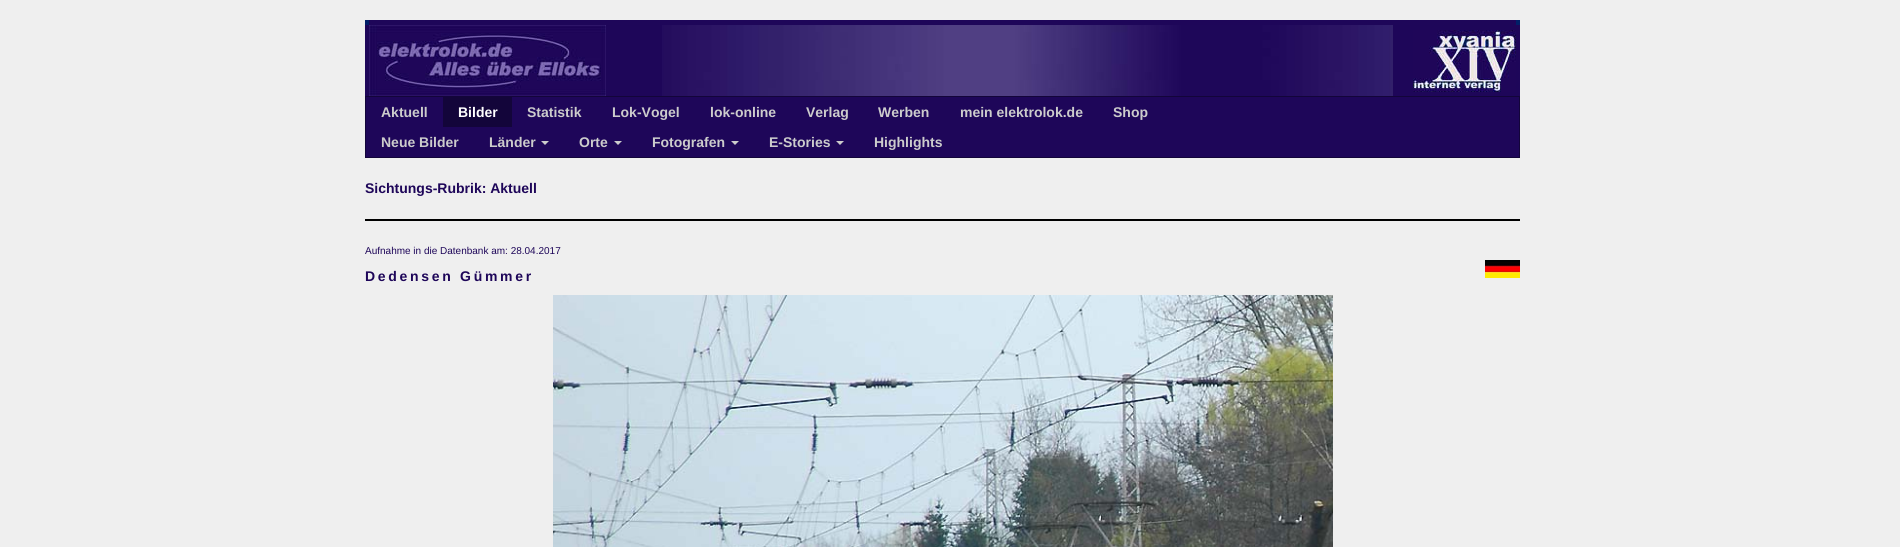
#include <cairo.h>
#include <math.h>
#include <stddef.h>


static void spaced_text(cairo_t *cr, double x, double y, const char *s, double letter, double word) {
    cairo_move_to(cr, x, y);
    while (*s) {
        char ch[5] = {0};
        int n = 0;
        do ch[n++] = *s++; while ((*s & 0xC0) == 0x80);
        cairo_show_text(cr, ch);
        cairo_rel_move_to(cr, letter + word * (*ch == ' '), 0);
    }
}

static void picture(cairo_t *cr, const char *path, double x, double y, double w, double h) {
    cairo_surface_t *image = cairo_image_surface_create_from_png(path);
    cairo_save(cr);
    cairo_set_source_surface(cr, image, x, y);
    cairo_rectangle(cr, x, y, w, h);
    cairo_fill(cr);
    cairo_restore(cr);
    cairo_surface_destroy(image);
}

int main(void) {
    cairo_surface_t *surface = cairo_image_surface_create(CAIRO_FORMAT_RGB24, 1900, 547);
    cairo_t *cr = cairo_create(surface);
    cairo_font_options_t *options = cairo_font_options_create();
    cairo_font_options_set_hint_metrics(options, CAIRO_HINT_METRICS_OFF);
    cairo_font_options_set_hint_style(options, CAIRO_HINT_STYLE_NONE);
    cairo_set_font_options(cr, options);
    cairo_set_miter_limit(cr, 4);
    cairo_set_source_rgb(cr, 0.937, 0.937, 0.937);
    cairo_paint(cr);
    cairo_set_source_rgb(cr, 0.004, 0.122, 0.408);
    cairo_rectangle(cr, 365, 20, 4, 5);
    cairo_fill(cr);
    cairo_set_source_rgb(cr, 0.118, 0.027, 0.349);
    cairo_rectangle(cr, 369, 20, 1147, 5);
    cairo_fill(cr);
    cairo_set_source_rgb(cr, 0.004, 0.122, 0.408);
    cairo_rectangle(cr, 1516, 20, 4, 5);
    cairo_fill(cr);
    cairo_set_source_rgb(cr, 0.118, 0.027, 0.349);
    cairo_rectangle(cr, 365, 25, 4, 71);
    cairo_fill(cr);
    cairo_rectangle(cr, 606, 25, 56, 71);
    cairo_fill(cr);
    picture(cr, "img1.png", 369, 25, 237, 71);
    picture(cr, "img2.png", 662, 25, 731, 71);
    cairo_rectangle(cr, 1393, 25, 127, 71);
    cairo_fill(cr);
    picture(cr, "img3.png", 1413, 30, 103, 62);
    cairo_rectangle(cr, 365.5, 96.5, 1154, 61);
    cairo_fill_preserve(cr);
    cairo_set_source_rgb(cr, 0.078, 0.02, 0.227);
    cairo_set_line_width(cr, 1);
    cairo_stroke(cr);
    cairo_select_font_face(cr, "Liberation Sans", CAIRO_FONT_SLANT_NORMAL, CAIRO_FONT_WEIGHT_BOLD);
    cairo_set_font_size(cr, 14);
    cairo_set_source_rgb(cr, 0.8, 0.8, 0.8);
    cairo_move_to(cr, 381, 117);
    cairo_show_text(cr, "Aktuell");
    cairo_set_source_rgb(cr, 0.078, 0.02, 0.227);
    cairo_rectangle(cr, 443, 97, 69, 30);
    cairo_fill(cr);
    cairo_set_source_rgb(cr, 1, 1, 1);
    cairo_move_to(cr, 458, 117);
    cairo_show_text(cr, "Bilder");
    cairo_set_source_rgb(cr, 0.8, 0.8, 0.8);
    cairo_move_to(cr, 527, 117);
    cairo_show_text(cr, "Statistik");
    cairo_move_to(cr, 612, 117);
    cairo_show_text(cr, "Lok-Vogel");
    cairo_move_to(cr, 710, 117);
    cairo_show_text(cr, "lok-online");
    cairo_move_to(cr, 806, 117);
    cairo_show_text(cr, "Verlag");
    cairo_move_to(cr, 878, 117);
    cairo_show_text(cr, "Werben");
    cairo_move_to(cr, 960, 117);
    cairo_show_text(cr, "mein elektrolok.de");
    cairo_move_to(cr, 1113, 117);
    cairo_show_text(cr, "Shop");
    cairo_move_to(cr, 381, 147);
    cairo_show_text(cr, "Neue Bilder");
    cairo_move_to(cr, 489, 147);
    cairo_show_text(cr, "Länder");
    cairo_new_path(cr);
    cairo_move_to(cr, 541, 141);
    cairo_line_to(cr, 549, 141);
    cairo_line_to(cr, 545, 145);
    cairo_close_path(cr);
    cairo_fill(cr);
    cairo_move_to(cr, 579, 147);
    cairo_show_text(cr, "Orte");
    cairo_new_path(cr);
    cairo_move_to(cr, 614, 141);
    cairo_line_to(cr, 622, 141);
    cairo_line_to(cr, 618, 145);
    cairo_close_path(cr);
    cairo_fill(cr);
    cairo_move_to(cr, 652, 147);
    cairo_show_text(cr, "Fotografen");
    cairo_new_path(cr);
    cairo_move_to(cr, 731, 141);
    cairo_line_to(cr, 739, 141);
    cairo_line_to(cr, 735, 145);
    cairo_close_path(cr);
    cairo_fill(cr);
    cairo_move_to(cr, 769, 147);
    cairo_show_text(cr, "E-Stories");
    cairo_new_path(cr);
    cairo_move_to(cr, 836, 141);
    cairo_line_to(cr, 844, 141);
    cairo_line_to(cr, 840, 145);
    cairo_close_path(cr);
    cairo_fill(cr);
    cairo_move_to(cr, 874, 147);
    cairo_show_text(cr, "Highlights");
    cairo_set_source_rgb(cr, 0.118, 0.027, 0.349);
    cairo_move_to(cr, 365, 193);
    cairo_show_text(cr, "Sichtungs-Rubrik: Aktuell");
    cairo_set_source_rgb(cr, 0, 0, 0);
    cairo_rectangle(cr, 365, 219, 1155, 2);
    cairo_fill(cr);
    cairo_select_font_face(cr, "Liberation Sans", CAIRO_FONT_SLANT_NORMAL, CAIRO_FONT_WEIGHT_NORMAL);
    cairo_set_font_size(cr, 10);
    cairo_set_source_rgb(cr, 0.118, 0.027, 0.349);
    cairo_move_to(cr, 365, 254);
    cairo_show_text(cr, "Aufnahme in die Datenbank am: 28.04.2017");
    cairo_select_font_face(cr, "Liberation Sans", CAIRO_FONT_SLANT_NORMAL, CAIRO_FONT_WEIGHT_BOLD);
    cairo_set_font_size(cr, 14);
    spaced_text(cr, 365, 281, "Dedensen Gümmer", 2.7, 0);
    picture(cr, "img4.png", 1485, 260, 35, 18);
    picture(cr, "img5.png", 553, 295, 780, 252);
    cairo_surface_write_to_png(surface, "page.png");
    cairo_font_options_destroy(options);
    cairo_destroy(cr);
    cairo_surface_destroy(surface);
    return 0;
}
